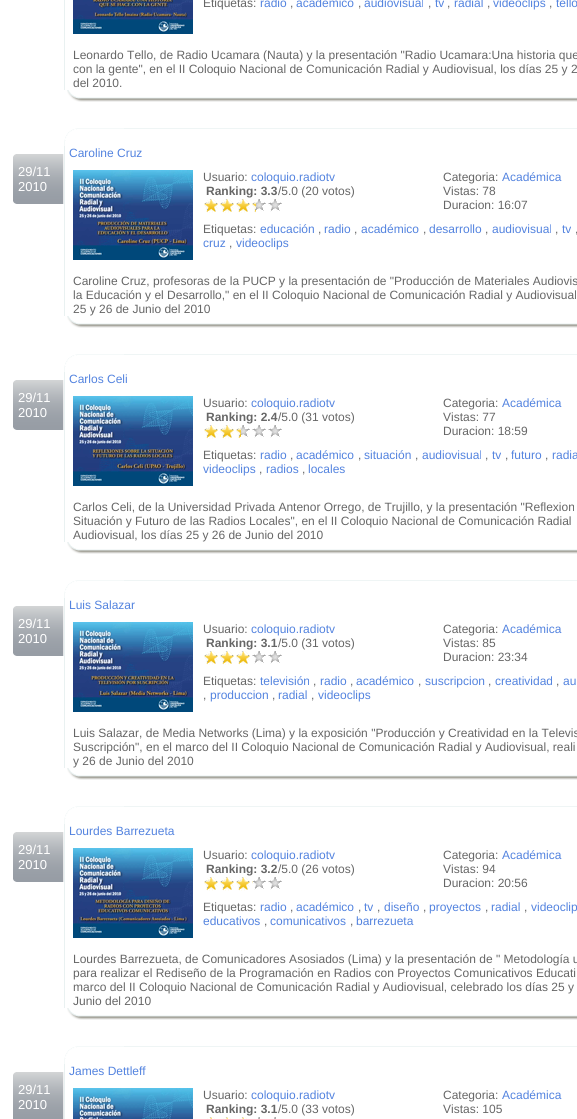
#include <cairo.h>
#include <math.h>
#include <stddef.h>


static void picture(cairo_t *cr, const char *path, double x, double y, double w, double h) {
    cairo_surface_t *image = cairo_image_surface_create_from_png(path);
    cairo_save(cr);
    cairo_set_source_surface(cr, image, x, y);
    cairo_rectangle(cr, x, y, w, h);
    cairo_fill(cr);
    cairo_restore(cr);
    cairo_surface_destroy(image);
}

int main(void) {
    cairo_surface_t *surface = cairo_image_surface_create(CAIRO_FORMAT_RGB24, 577, 1119);
    cairo_t *cr = cairo_create(surface);
    cairo_font_options_t *options = cairo_font_options_create();
    cairo_font_options_set_hint_metrics(options, CAIRO_HINT_METRICS_OFF);
    cairo_font_options_set_hint_style(options, CAIRO_HINT_STYLE_NONE);
    cairo_set_font_options(cr, options);
    cairo_set_miter_limit(cr, 4);
    cairo_set_source_rgb(cr, 1, 1, 1);
    cairo_paint(cr);
    cairo_set_source_rgb(cr, 0.914, 0.945, 0.945);
    cairo_rectangle(cr, 64, 0, 1, 90);
    cairo_fill(cr);
    cairo_select_font_face(cr, "Liberation Sans", CAIRO_FONT_SLANT_NORMAL, CAIRO_FONT_WEIGHT_NORMAL);
    cairo_set_font_size(cr, 12);
    cairo_set_source_rgb(cr, 0.4, 0.4, 0.4);
    cairo_move_to(cr, 203, 7);
    cairo_show_text(cr, "Etiquetas:");
    cairo_set_source_rgb(cr, 0.325, 0.514, 0.875);
    cairo_move_to(cr, 260, 7);
    cairo_show_text(cr, "radio");
    cairo_set_source_rgb(cr, 0.4, 0.4, 0.4);
    cairo_move_to(cr, 290, 7);
    cairo_show_text(cr, ",");
    cairo_set_source_rgb(cr, 0.325, 0.514, 0.875);
    cairo_move_to(cr, 296, 7);
    cairo_show_text(cr, "académico");
    cairo_set_source_rgb(cr, 0.4, 0.4, 0.4);
    cairo_move_to(cr, 358, 7);
    cairo_show_text(cr, ",");
    cairo_set_source_rgb(cr, 0.325, 0.514, 0.875);
    cairo_move_to(cr, 364, 7);
    cairo_show_text(cr, "audiovisual");
    cairo_set_source_rgb(cr, 0.4, 0.4, 0.4);
    cairo_move_to(cr, 428, 7);
    cairo_show_text(cr, ",");
    cairo_set_source_rgb(cr, 0.325, 0.514, 0.875);
    cairo_move_to(cr, 435, 7);
    cairo_show_text(cr, "tv");
    cairo_set_source_rgb(cr, 0.4, 0.4, 0.4);
    cairo_move_to(cr, 447, 7);
    cairo_show_text(cr, ",");
    cairo_set_source_rgb(cr, 0.325, 0.514, 0.875);
    cairo_move_to(cr, 454, 7);
    cairo_show_text(cr, "radial");
    cairo_set_source_rgb(cr, 0.4, 0.4, 0.4);
    cairo_move_to(cr, 487, 7);
    cairo_show_text(cr, ",");
    cairo_set_source_rgb(cr, 0.325, 0.514, 0.875);
    cairo_move_to(cr, 493, 7);
    cairo_show_text(cr, "videoclips");
    cairo_set_source_rgb(cr, 0.4, 0.4, 0.4);
    cairo_move_to(cr, 549, 7);
    cairo_show_text(cr, ",");
    cairo_set_source_rgb(cr, 0.325, 0.514, 0.875);
    cairo_move_to(cr, 556, 7);
    cairo_show_text(cr, "tello");
    picture(cr, "img1.png", 73, 0, 120, 34);
    cairo_set_source_rgb(cr, 0.4, 0.4, 0.4);
    cairo_move_to(cr, 73, 59);
    cairo_show_text(cr, "Leonardo Tello, de Radio Ucamara (Nauta) y la presentación \"Radio Ucamara:Una historia que");
    cairo_move_to(cr, 73, 73);
    cairo_show_text(cr, "con la gente\", en el II Coloquio Nacional de Comunicación Radial y Audiovisual, los días 25 y 2");
    cairo_move_to(cr, 73, 87);
    cairo_show_text(cr, "del 2010.");
    picture(cr, "img2.png", 67, 90, 510, 12);
    picture(cr, "img3.png", 13, 154, 51, 50);
    cairo_set_font_size(cr, 13);
    cairo_set_source_rgb(cr, 1, 1, 1);
    cairo_move_to(cr, 18, 176);
    cairo_show_text(cr, "29/11");
    cairo_move_to(cr, 18, 191);
    cairo_show_text(cr, "2010");
    picture(cr, "img4.png", 64, 128, 513, 18);
    cairo_set_source_rgb(cr, 0.914, 0.945, 0.945);
    cairo_rectangle(cr, 64, 146, 1, 170);
    cairo_fill(cr);
    cairo_set_font_size(cr, 12);
    cairo_set_source_rgb(cr, 0.325, 0.514, 0.875);
    cairo_move_to(cr, 69, 157);
    cairo_show_text(cr, "Caroline Cruz");
    cairo_set_source_rgb(cr, 0.4, 0.4, 0.4);
    cairo_move_to(cr, 203, 181);
    cairo_show_text(cr, "Usuario:");
    cairo_set_source_rgb(cr, 0.325, 0.514, 0.875);
    cairo_move_to(cr, 251, 181);
    cairo_show_text(cr, "coloquio.radiotv");
    cairo_select_font_face(cr, "Liberation Sans", CAIRO_FONT_SLANT_NORMAL, CAIRO_FONT_WEIGHT_BOLD);
    cairo_set_source_rgb(cr, 0.4, 0.4, 0.4);
    cairo_move_to(cr, 206, 195);
    cairo_show_text(cr, "Ranking: 3.3");
    cairo_select_font_face(cr, "Liberation Sans", CAIRO_FONT_SLANT_NORMAL, CAIRO_FONT_WEIGHT_NORMAL);
    cairo_move_to(cr, 278, 195);
    cairo_show_text(cr, "/5.0 (20 votos)");
    picture(cr, "img5.png", 205, 199, 77, 13);
    picture(cr, "img6.png", 204, 199, 52, 14);
    cairo_move_to(cr, 203, 233);
    cairo_show_text(cr, "Etiquetas:");
    cairo_set_source_rgb(cr, 0.325, 0.514, 0.875);
    cairo_move_to(cr, 260, 233);
    cairo_show_text(cr, "educación");
    cairo_set_source_rgb(cr, 0.4, 0.4, 0.4);
    cairo_move_to(cr, 318, 233);
    cairo_show_text(cr, ",");
    cairo_set_source_rgb(cr, 0.325, 0.514, 0.875);
    cairo_move_to(cr, 324, 233);
    cairo_show_text(cr, "radio");
    cairo_set_source_rgb(cr, 0.4, 0.4, 0.4);
    cairo_move_to(cr, 354, 233);
    cairo_show_text(cr, ",");
    cairo_set_source_rgb(cr, 0.325, 0.514, 0.875);
    cairo_move_to(cr, 361, 233);
    cairo_show_text(cr, "académico");
    cairo_set_source_rgb(cr, 0.4, 0.4, 0.4);
    cairo_move_to(cr, 423, 233);
    cairo_show_text(cr, ",");
    cairo_set_source_rgb(cr, 0.325, 0.514, 0.875);
    cairo_move_to(cr, 429, 233);
    cairo_show_text(cr, "desarrollo");
    cairo_set_source_rgb(cr, 0.4, 0.4, 0.4);
    cairo_move_to(cr, 485, 233);
    cairo_show_text(cr, ",");
    cairo_set_source_rgb(cr, 0.325, 0.514, 0.875);
    cairo_move_to(cr, 492, 233);
    cairo_show_text(cr, "audiovisual");
    cairo_set_source_rgb(cr, 0.4, 0.4, 0.4);
    cairo_move_to(cr, 555, 233);
    cairo_show_text(cr, ",");
    cairo_set_source_rgb(cr, 0.325, 0.514, 0.875);
    cairo_move_to(cr, 562, 233);
    cairo_show_text(cr, "tv");
    cairo_set_source_rgb(cr, 0.4, 0.4, 0.4);
    cairo_move_to(cr, 575, 233);
    cairo_show_text(cr, ",");
    cairo_set_source_rgb(cr, 0.325, 0.514, 0.875);
    cairo_move_to(cr, 203, 247);
    cairo_show_text(cr, "cruz");
    cairo_set_source_rgb(cr, 0.4, 0.4, 0.4);
    cairo_move_to(cr, 229, 247);
    cairo_show_text(cr, ",");
    cairo_set_source_rgb(cr, 0.325, 0.514, 0.875);
    cairo_move_to(cr, 236, 247);
    cairo_show_text(cr, "videoclips");
    cairo_set_source_rgb(cr, 0.4, 0.4, 0.4);
    cairo_move_to(cr, 443, 181);
    cairo_show_text(cr, "Categoria:");
    cairo_set_source_rgb(cr, 0.325, 0.514, 0.875);
    cairo_move_to(cr, 502, 181);
    cairo_show_text(cr, "Académica");
    cairo_set_source_rgb(cr, 0.4, 0.4, 0.4);
    cairo_move_to(cr, 443, 195);
    cairo_show_text(cr, "Vistas: 78");
    cairo_move_to(cr, 443, 209);
    cairo_show_text(cr, "Duracion: 16:07");
    picture(cr, "img7.png", 73, 170, 120, 90);
    cairo_move_to(cr, 73, 285);
    cairo_show_text(cr, "Caroline Cruz, profesoras de la PUCP y la presentación de \"Producción de Materiales Audiovis");
    cairo_move_to(cr, 73, 299);
    cairo_show_text(cr, "la Educación y el Desarrollo,\" en el II Coloquio Nacional de Comunicación Radial y Audiovisual");
    cairo_move_to(cr, 73, 313);
    cairo_show_text(cr, "25 y 26 de Junio del 2010");
    picture(cr, "img2.png", 67, 316, 510, 12);
    picture(cr, "img3.png", 13, 380, 51, 50);
    cairo_set_font_size(cr, 13);
    cairo_set_source_rgb(cr, 1, 1, 1);
    cairo_move_to(cr, 18, 402);
    cairo_show_text(cr, "29/11");
    cairo_move_to(cr, 18, 417);
    cairo_show_text(cr, "2010");
    picture(cr, "img4.png", 64, 354, 513, 18);
    cairo_set_source_rgb(cr, 0.914, 0.945, 0.945);
    cairo_rectangle(cr, 64, 372, 1, 170);
    cairo_fill(cr);
    cairo_set_font_size(cr, 12);
    cairo_set_source_rgb(cr, 0.325, 0.514, 0.875);
    cairo_move_to(cr, 69, 383);
    cairo_show_text(cr, "Carlos Celi");
    cairo_set_source_rgb(cr, 0.4, 0.4, 0.4);
    cairo_move_to(cr, 203, 407);
    cairo_show_text(cr, "Usuario:");
    cairo_set_source_rgb(cr, 0.325, 0.514, 0.875);
    cairo_move_to(cr, 251, 407);
    cairo_show_text(cr, "coloquio.radiotv");
    cairo_select_font_face(cr, "Liberation Sans", CAIRO_FONT_SLANT_NORMAL, CAIRO_FONT_WEIGHT_BOLD);
    cairo_set_source_rgb(cr, 0.4, 0.4, 0.4);
    cairo_move_to(cr, 206, 421);
    cairo_show_text(cr, "Ranking: 2.4");
    cairo_select_font_face(cr, "Liberation Sans", CAIRO_FONT_SLANT_NORMAL, CAIRO_FONT_WEIGHT_NORMAL);
    cairo_move_to(cr, 278, 421);
    cairo_show_text(cr, "/5.0 (31 votos)");
    picture(cr, "img5.png", 205, 425, 77, 13);
    picture(cr, "img8.png", 204, 425, 37, 14);
    cairo_move_to(cr, 203, 459);
    cairo_show_text(cr, "Etiquetas:");
    cairo_set_source_rgb(cr, 0.325, 0.514, 0.875);
    cairo_move_to(cr, 260, 459);
    cairo_show_text(cr, "radio");
    cairo_set_source_rgb(cr, 0.4, 0.4, 0.4);
    cairo_move_to(cr, 290, 459);
    cairo_show_text(cr, ",");
    cairo_set_source_rgb(cr, 0.325, 0.514, 0.875);
    cairo_move_to(cr, 296, 459);
    cairo_show_text(cr, "académico");
    cairo_set_source_rgb(cr, 0.4, 0.4, 0.4);
    cairo_move_to(cr, 358, 459);
    cairo_show_text(cr, ",");
    cairo_set_source_rgb(cr, 0.325, 0.514, 0.875);
    cairo_move_to(cr, 364, 459);
    cairo_show_text(cr, "situación");
    cairo_set_source_rgb(cr, 0.4, 0.4, 0.4);
    cairo_move_to(cr, 415, 459);
    cairo_show_text(cr, ",");
    cairo_set_source_rgb(cr, 0.325, 0.514, 0.875);
    cairo_move_to(cr, 422, 459);
    cairo_show_text(cr, "audiovisual");
    cairo_set_source_rgb(cr, 0.4, 0.4, 0.4);
    cairo_move_to(cr, 485, 459);
    cairo_show_text(cr, ",");
    cairo_set_source_rgb(cr, 0.325, 0.514, 0.875);
    cairo_move_to(cr, 492, 459);
    cairo_show_text(cr, "tv");
    cairo_set_source_rgb(cr, 0.4, 0.4, 0.4);
    cairo_move_to(cr, 505, 459);
    cairo_show_text(cr, ",");
    cairo_set_source_rgb(cr, 0.325, 0.514, 0.875);
    cairo_move_to(cr, 511, 459);
    cairo_show_text(cr, "futuro");
    cairo_set_source_rgb(cr, 0.4, 0.4, 0.4);
    cairo_move_to(cr, 545, 459);
    cairo_show_text(cr, ",");
    cairo_set_source_rgb(cr, 0.325, 0.514, 0.875);
    cairo_move_to(cr, 552, 459);
    cairo_show_text(cr, "radia");
    cairo_move_to(cr, 203, 473);
    cairo_show_text(cr, "videoclips");
    cairo_set_source_rgb(cr, 0.4, 0.4, 0.4);
    cairo_move_to(cr, 259, 473);
    cairo_show_text(cr, ",");
    cairo_set_source_rgb(cr, 0.325, 0.514, 0.875);
    cairo_move_to(cr, 266, 473);
    cairo_show_text(cr, "radios");
    cairo_set_source_rgb(cr, 0.4, 0.4, 0.4);
    cairo_move_to(cr, 302, 473);
    cairo_show_text(cr, ",");
    cairo_set_source_rgb(cr, 0.325, 0.514, 0.875);
    cairo_move_to(cr, 308, 473);
    cairo_show_text(cr, "locales");
    cairo_set_source_rgb(cr, 0.4, 0.4, 0.4);
    cairo_move_to(cr, 443, 407);
    cairo_show_text(cr, "Categoria:");
    cairo_set_source_rgb(cr, 0.325, 0.514, 0.875);
    cairo_move_to(cr, 502, 407);
    cairo_show_text(cr, "Académica");
    cairo_set_source_rgb(cr, 0.4, 0.4, 0.4);
    cairo_move_to(cr, 443, 421);
    cairo_show_text(cr, "Vistas: 77");
    cairo_move_to(cr, 443, 435);
    cairo_show_text(cr, "Duracion: 18:59");
    picture(cr, "img9.png", 73, 396, 120, 90);
    cairo_move_to(cr, 73, 511);
    cairo_show_text(cr, "Carlos Celi, de la Universidad Privada Antenor Orrego, de Trujillo, y la presentación \"Reflexion");
    cairo_move_to(cr, 73, 525);
    cairo_show_text(cr, "Situación y Futuro de las Radios Locales\", en el II Coloquio Nacional de Comunicación Radial");
    cairo_move_to(cr, 73, 539);
    cairo_show_text(cr, "Audiovisual, los días 25 y 26 de Junio del 2010");
    picture(cr, "img2.png", 67, 542, 510, 12);
    picture(cr, "img3.png", 13, 606, 51, 50);
    cairo_set_font_size(cr, 13);
    cairo_set_source_rgb(cr, 1, 1, 1);
    cairo_move_to(cr, 18, 628);
    cairo_show_text(cr, "29/11");
    cairo_move_to(cr, 18, 643);
    cairo_show_text(cr, "2010");
    picture(cr, "img4.png", 64, 580, 513, 18);
    cairo_set_source_rgb(cr, 0.914, 0.945, 0.945);
    cairo_rectangle(cr, 64, 598, 1, 170);
    cairo_fill(cr);
    cairo_set_font_size(cr, 12);
    cairo_set_source_rgb(cr, 0.325, 0.514, 0.875);
    cairo_move_to(cr, 69, 609);
    cairo_show_text(cr, "Luis Salazar");
    cairo_set_source_rgb(cr, 0.4, 0.4, 0.4);
    cairo_move_to(cr, 203, 633);
    cairo_show_text(cr, "Usuario:");
    cairo_set_source_rgb(cr, 0.325, 0.514, 0.875);
    cairo_move_to(cr, 251, 633);
    cairo_show_text(cr, "coloquio.radiotv");
    cairo_select_font_face(cr, "Liberation Sans", CAIRO_FONT_SLANT_NORMAL, CAIRO_FONT_WEIGHT_BOLD);
    cairo_set_source_rgb(cr, 0.4, 0.4, 0.4);
    cairo_move_to(cr, 206, 647);
    cairo_show_text(cr, "Ranking: 3.1");
    cairo_select_font_face(cr, "Liberation Sans", CAIRO_FONT_SLANT_NORMAL, CAIRO_FONT_WEIGHT_NORMAL);
    cairo_move_to(cr, 278, 647);
    cairo_show_text(cr, "/5.0 (31 votos)");
    picture(cr, "img5.png", 205, 651, 77, 13);
    picture(cr, "img10.png", 204, 651, 46, 14);
    cairo_move_to(cr, 203, 685);
    cairo_show_text(cr, "Etiquetas:");
    cairo_set_source_rgb(cr, 0.325, 0.514, 0.875);
    cairo_move_to(cr, 260, 685);
    cairo_show_text(cr, "televisión");
    cairo_set_source_rgb(cr, 0.4, 0.4, 0.4);
    cairo_move_to(cr, 313, 685);
    cairo_show_text(cr, ",");
    cairo_set_source_rgb(cr, 0.325, 0.514, 0.875);
    cairo_move_to(cr, 320, 685);
    cairo_show_text(cr, "radio");
    cairo_set_source_rgb(cr, 0.4, 0.4, 0.4);
    cairo_move_to(cr, 350, 685);
    cairo_show_text(cr, ",");
    cairo_set_source_rgb(cr, 0.325, 0.514, 0.875);
    cairo_move_to(cr, 356, 685);
    cairo_show_text(cr, "académico");
    cairo_set_source_rgb(cr, 0.4, 0.4, 0.4);
    cairo_move_to(cr, 418, 685);
    cairo_show_text(cr, ",");
    cairo_set_source_rgb(cr, 0.325, 0.514, 0.875);
    cairo_move_to(cr, 425, 685);
    cairo_show_text(cr, "suscripcion");
    cairo_set_source_rgb(cr, 0.4, 0.4, 0.4);
    cairo_move_to(cr, 488, 685);
    cairo_show_text(cr, ",");
    cairo_set_source_rgb(cr, 0.325, 0.514, 0.875);
    cairo_move_to(cr, 495, 685);
    cairo_show_text(cr, "creatividad");
    cairo_set_source_rgb(cr, 0.4, 0.4, 0.4);
    cairo_move_to(cr, 556, 685);
    cairo_show_text(cr, ",");
    cairo_set_source_rgb(cr, 0.325, 0.514, 0.875);
    cairo_move_to(cr, 563, 685);
    cairo_show_text(cr, "au");
    cairo_set_source_rgb(cr, 0.4, 0.4, 0.4);
    cairo_move_to(cr, 203, 699);
    cairo_show_text(cr, ",");
    cairo_set_source_rgb(cr, 0.325, 0.514, 0.875);
    cairo_move_to(cr, 210, 699);
    cairo_show_text(cr, "produccion");
    cairo_set_source_rgb(cr, 0.4, 0.4, 0.4);
    cairo_move_to(cr, 272, 699);
    cairo_show_text(cr, ",");
    cairo_set_source_rgb(cr, 0.325, 0.514, 0.875);
    cairo_move_to(cr, 278, 699);
    cairo_show_text(cr, "radial");
    cairo_set_source_rgb(cr, 0.4, 0.4, 0.4);
    cairo_move_to(cr, 311, 699);
    cairo_show_text(cr, ",");
    cairo_set_source_rgb(cr, 0.325, 0.514, 0.875);
    cairo_move_to(cr, 318, 699);
    cairo_show_text(cr, "videoclips");
    cairo_set_source_rgb(cr, 0.4, 0.4, 0.4);
    cairo_move_to(cr, 443, 633);
    cairo_show_text(cr, "Categoria:");
    cairo_set_source_rgb(cr, 0.325, 0.514, 0.875);
    cairo_move_to(cr, 502, 633);
    cairo_show_text(cr, "Académica");
    cairo_set_source_rgb(cr, 0.4, 0.4, 0.4);
    cairo_move_to(cr, 443, 647);
    cairo_show_text(cr, "Vistas: 85");
    cairo_move_to(cr, 443, 661);
    cairo_show_text(cr, "Duracion: 23:34");
    picture(cr, "img11.png", 73, 622, 120, 90);
    cairo_move_to(cr, 73, 737);
    cairo_show_text(cr, "Luis Salazar, de Media Networks (Lima) y la exposición \"Producción y Creatividad en la Televis");
    cairo_move_to(cr, 73, 751);
    cairo_show_text(cr, "Suscripción\", en el marco del II Coloquio Nacional de Comunicación Radial y Audiovisual, reali");
    cairo_move_to(cr, 73, 765);
    cairo_show_text(cr, "y 26 de Junio del 2010");
    picture(cr, "img2.png", 67, 768, 510, 12);
    picture(cr, "img3.png", 13, 832, 51, 50);
    cairo_set_font_size(cr, 13);
    cairo_set_source_rgb(cr, 1, 1, 1);
    cairo_move_to(cr, 18, 854);
    cairo_show_text(cr, "29/11");
    cairo_move_to(cr, 18, 869);
    cairo_show_text(cr, "2010");
    picture(cr, "img4.png", 64, 806, 513, 18);
    cairo_set_source_rgb(cr, 0.914, 0.945, 0.945);
    cairo_rectangle(cr, 64, 824, 1, 184);
    cairo_fill(cr);
    cairo_set_font_size(cr, 12);
    cairo_set_source_rgb(cr, 0.325, 0.514, 0.875);
    cairo_move_to(cr, 69, 835);
    cairo_show_text(cr, "Lourdes Barrezueta");
    cairo_set_source_rgb(cr, 0.4, 0.4, 0.4);
    cairo_move_to(cr, 203, 859);
    cairo_show_text(cr, "Usuario:");
    cairo_set_source_rgb(cr, 0.325, 0.514, 0.875);
    cairo_move_to(cr, 251, 859);
    cairo_show_text(cr, "coloquio.radiotv");
    cairo_select_font_face(cr, "Liberation Sans", CAIRO_FONT_SLANT_NORMAL, CAIRO_FONT_WEIGHT_BOLD);
    cairo_set_source_rgb(cr, 0.4, 0.4, 0.4);
    cairo_move_to(cr, 206, 873);
    cairo_show_text(cr, "Ranking: 3.2");
    cairo_select_font_face(cr, "Liberation Sans", CAIRO_FONT_SLANT_NORMAL, CAIRO_FONT_WEIGHT_NORMAL);
    cairo_move_to(cr, 278, 873);
    cairo_show_text(cr, "/5.0 (26 votos)");
    picture(cr, "img5.png", 205, 877, 77, 13);
    picture(cr, "img12.png", 204, 877, 49, 14);
    cairo_move_to(cr, 203, 911);
    cairo_show_text(cr, "Etiquetas:");
    cairo_set_source_rgb(cr, 0.325, 0.514, 0.875);
    cairo_move_to(cr, 260, 911);
    cairo_show_text(cr, "radio");
    cairo_set_source_rgb(cr, 0.4, 0.4, 0.4);
    cairo_move_to(cr, 290, 911);
    cairo_show_text(cr, ",");
    cairo_set_source_rgb(cr, 0.325, 0.514, 0.875);
    cairo_move_to(cr, 296, 911);
    cairo_show_text(cr, "académico");
    cairo_set_source_rgb(cr, 0.4, 0.4, 0.4);
    cairo_move_to(cr, 358, 911);
    cairo_show_text(cr, ",");
    cairo_set_source_rgb(cr, 0.325, 0.514, 0.875);
    cairo_move_to(cr, 364, 911);
    cairo_show_text(cr, "tv");
    cairo_set_source_rgb(cr, 0.4, 0.4, 0.4);
    cairo_move_to(cr, 377, 911);
    cairo_show_text(cr, ",");
    cairo_set_source_rgb(cr, 0.325, 0.514, 0.875);
    cairo_move_to(cr, 384, 911);
    cairo_show_text(cr, "diseño");
    cairo_set_source_rgb(cr, 0.4, 0.4, 0.4);
    cairo_move_to(cr, 423, 911);
    cairo_show_text(cr, ",");
    cairo_set_source_rgb(cr, 0.325, 0.514, 0.875);
    cairo_move_to(cr, 429, 911);
    cairo_show_text(cr, "proyectos");
    cairo_set_source_rgb(cr, 0.4, 0.4, 0.4);
    cairo_move_to(cr, 485, 911);
    cairo_show_text(cr, ",");
    cairo_set_source_rgb(cr, 0.325, 0.514, 0.875);
    cairo_move_to(cr, 491, 911);
    cairo_show_text(cr, "radial");
    cairo_set_source_rgb(cr, 0.4, 0.4, 0.4);
    cairo_move_to(cr, 524, 911);
    cairo_show_text(cr, ",");
    cairo_set_source_rgb(cr, 0.325, 0.514, 0.875);
    cairo_move_to(cr, 531, 911);
    cairo_show_text(cr, "videoclip");
    cairo_move_to(cr, 203, 925);
    cairo_show_text(cr, "educativos");
    cairo_set_source_rgb(cr, 0.4, 0.4, 0.4);
    cairo_move_to(cr, 264, 925);
    cairo_show_text(cr, ",");
    cairo_set_source_rgb(cr, 0.325, 0.514, 0.875);
    cairo_move_to(cr, 270, 925);
    cairo_show_text(cr, "comunicativos");
    cairo_set_source_rgb(cr, 0.4, 0.4, 0.4);
    cairo_move_to(cr, 350, 925);
    cairo_show_text(cr, ",");
    cairo_set_source_rgb(cr, 0.325, 0.514, 0.875);
    cairo_move_to(cr, 356, 925);
    cairo_show_text(cr, "barrezueta");
    cairo_set_source_rgb(cr, 0.4, 0.4, 0.4);
    cairo_move_to(cr, 443, 859);
    cairo_show_text(cr, "Categoria:");
    cairo_set_source_rgb(cr, 0.325, 0.514, 0.875);
    cairo_move_to(cr, 502, 859);
    cairo_show_text(cr, "Académica");
    cairo_set_source_rgb(cr, 0.4, 0.4, 0.4);
    cairo_move_to(cr, 443, 873);
    cairo_show_text(cr, "Vistas: 94");
    cairo_move_to(cr, 443, 887);
    cairo_show_text(cr, "Duracion: 20:56");
    picture(cr, "img13.png", 73, 848, 120, 90);
    cairo_move_to(cr, 73, 963);
    cairo_show_text(cr, "Lourdes Barrezueta, de Comunicadores Asosiados (Lima) y la presentación de \" Metodología u");
    cairo_move_to(cr, 73, 977);
    cairo_show_text(cr, "para realizar el Rediseño de la Programación en Radios con Proyectos Comunicativos Educati");
    cairo_move_to(cr, 73, 991);
    cairo_show_text(cr, "marco del II Coloquio Nacional de Comunicación Radial y Audiovisual, celebrado los días 25 y");
    cairo_move_to(cr, 73, 1005);
    cairo_show_text(cr, "Junio del 2010");
    picture(cr, "img2.png", 67, 1008, 510, 12);
    picture(cr, "img14.png", 13, 1072, 51, 47);
    cairo_set_font_size(cr, 13);
    cairo_set_source_rgb(cr, 1, 1, 1);
    cairo_move_to(cr, 18, 1094);
    cairo_show_text(cr, "29/11");
    cairo_move_to(cr, 18, 1109);
    cairo_show_text(cr, "2010");
    picture(cr, "img4.png", 64, 1046, 513, 18);
    cairo_set_source_rgb(cr, 0.914, 0.945, 0.945);
    cairo_rectangle(cr, 64, 1064, 1, 55);
    cairo_fill(cr);
    cairo_set_font_size(cr, 12);
    cairo_set_source_rgb(cr, 0.325, 0.514, 0.875);
    cairo_move_to(cr, 69, 1075);
    cairo_show_text(cr, "James Dettleff");
    picture(cr, "img15.png", 73, 1088, 120, 31);
    cairo_set_source_rgb(cr, 0.4, 0.4, 0.4);
    cairo_move_to(cr, 203, 1099);
    cairo_show_text(cr, "Usuario:");
    cairo_set_source_rgb(cr, 0.325, 0.514, 0.875);
    cairo_move_to(cr, 251, 1099);
    cairo_show_text(cr, "coloquio.radiotv");
    cairo_select_font_face(cr, "Liberation Sans", CAIRO_FONT_SLANT_NORMAL, CAIRO_FONT_WEIGHT_BOLD);
    cairo_set_source_rgb(cr, 0.4, 0.4, 0.4);
    cairo_move_to(cr, 206, 1113);
    cairo_show_text(cr, "Ranking: 3.1");
    cairo_select_font_face(cr, "Liberation Sans", CAIRO_FONT_SLANT_NORMAL, CAIRO_FONT_WEIGHT_NORMAL);
    cairo_move_to(cr, 278, 1113);
    cairo_show_text(cr, "/5.0 (33 votos)");
    picture(cr, "img16.png", 210, 1117, 66, 2);
    picture(cr, "img17.png", 207, 1117, 40, 2);
    cairo_move_to(cr, 443, 1099);
    cairo_show_text(cr, "Categoria:");
    cairo_set_source_rgb(cr, 0.325, 0.514, 0.875);
    cairo_move_to(cr, 502, 1099);
    cairo_show_text(cr, "Académica");
    cairo_set_source_rgb(cr, 0.4, 0.4, 0.4);
    cairo_move_to(cr, 443, 1113);
    cairo_show_text(cr, "Vistas: 105");
    cairo_surface_write_to_png(surface, "page.png");
    cairo_font_options_destroy(options);
    cairo_destroy(cr);
    cairo_surface_destroy(surface);
    return 0;
}
